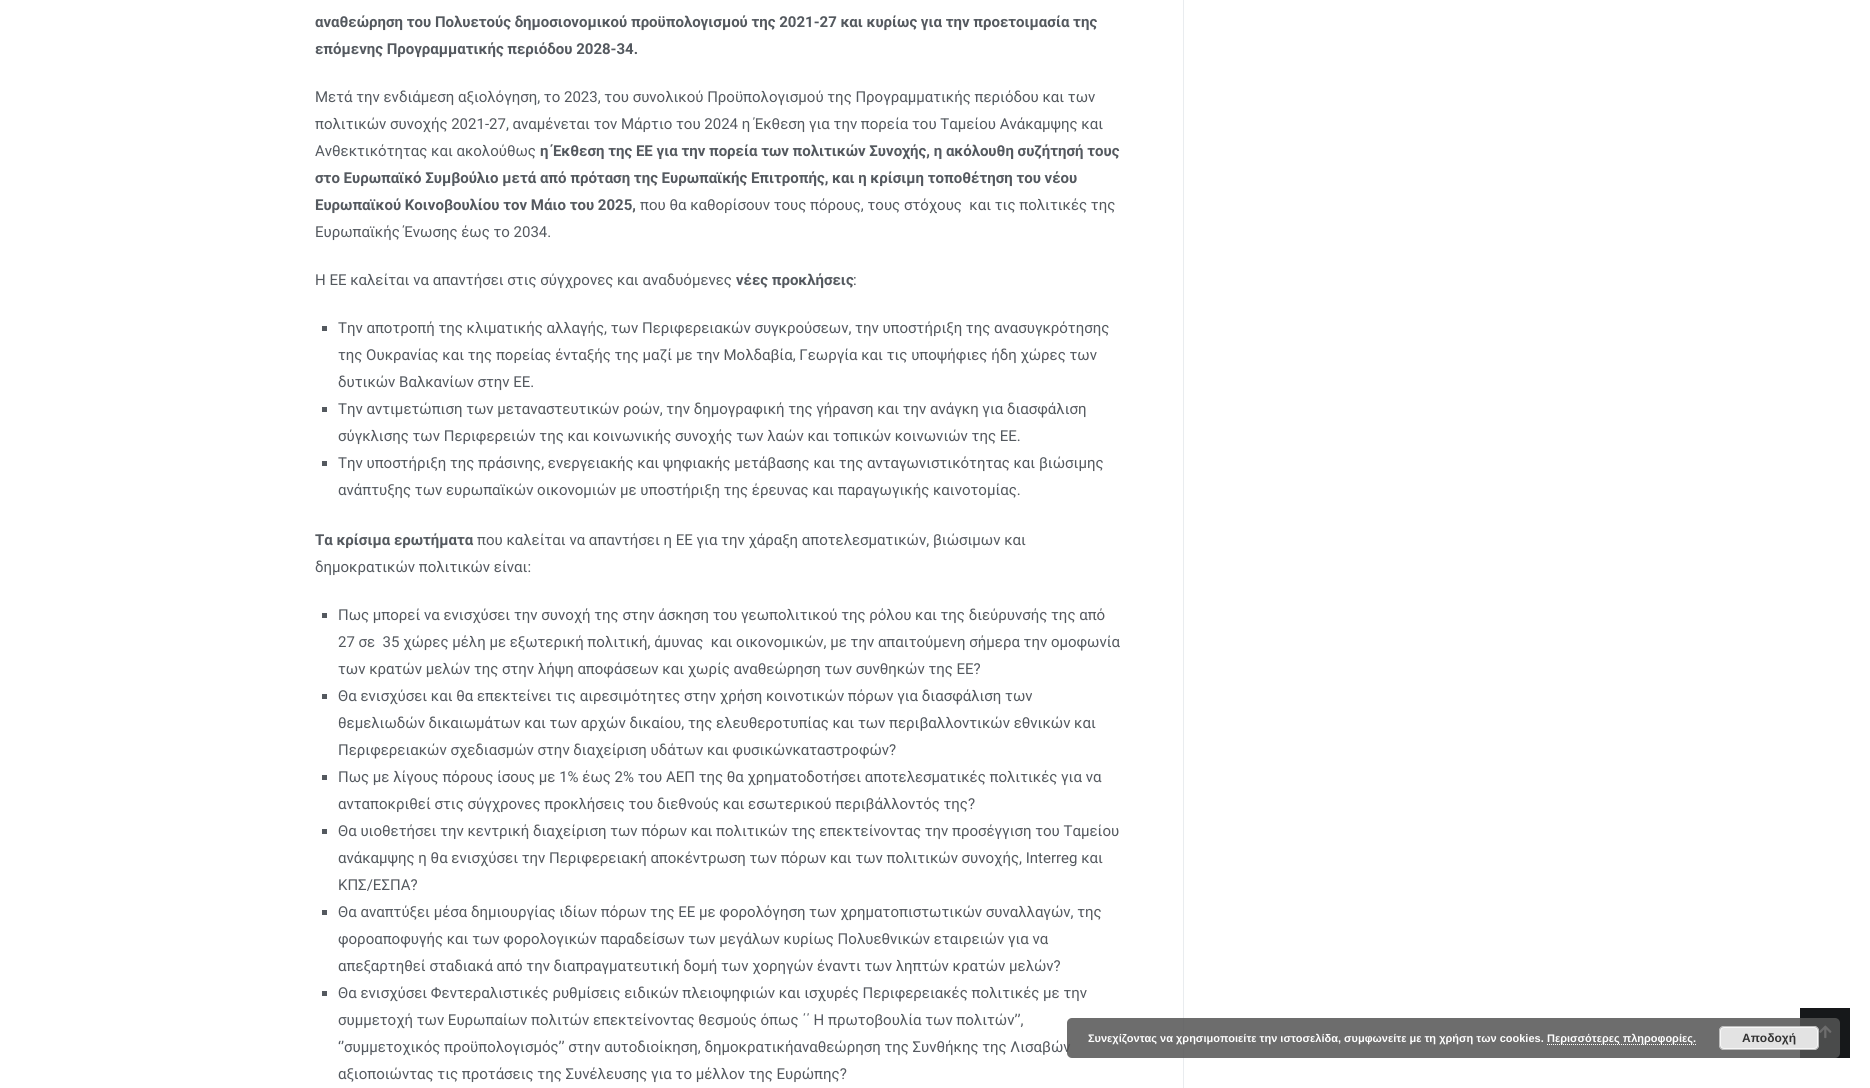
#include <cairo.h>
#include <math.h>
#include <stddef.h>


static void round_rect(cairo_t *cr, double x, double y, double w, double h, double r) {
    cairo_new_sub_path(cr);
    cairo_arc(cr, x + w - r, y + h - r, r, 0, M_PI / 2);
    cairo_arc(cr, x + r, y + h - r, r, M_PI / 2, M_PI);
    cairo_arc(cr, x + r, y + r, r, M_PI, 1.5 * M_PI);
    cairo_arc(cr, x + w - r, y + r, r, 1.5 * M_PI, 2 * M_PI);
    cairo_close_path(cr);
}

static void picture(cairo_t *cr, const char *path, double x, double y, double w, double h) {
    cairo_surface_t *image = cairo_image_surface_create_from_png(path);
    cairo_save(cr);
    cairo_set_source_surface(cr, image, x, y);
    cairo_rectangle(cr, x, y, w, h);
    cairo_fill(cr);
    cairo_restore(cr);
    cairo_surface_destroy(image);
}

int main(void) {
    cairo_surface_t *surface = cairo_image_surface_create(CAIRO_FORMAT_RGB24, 1870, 1088);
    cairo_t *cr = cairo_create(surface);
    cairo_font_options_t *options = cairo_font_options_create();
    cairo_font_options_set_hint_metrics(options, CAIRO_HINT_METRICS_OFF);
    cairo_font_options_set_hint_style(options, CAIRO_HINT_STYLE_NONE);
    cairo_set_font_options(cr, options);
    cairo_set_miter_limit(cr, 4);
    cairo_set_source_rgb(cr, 1, 1, 1);
    cairo_paint(cr);
    cairo_select_font_face(cr, "Roboto", CAIRO_FONT_SLANT_NORMAL, CAIRO_FONT_WEIGHT_BOLD);
    cairo_set_font_size(cr, 15);
    cairo_set_source_rgb(cr, 0.329, 0.349, 0.373);
    cairo_move_to(cr, 315, 27);
    cairo_show_text(cr, "αναθεώρηση του Πολυετούς δημοσιονομικού προϋπολογισμού της 2021-27 και κυρίως για την προετοιμασία της");
    cairo_move_to(cr, 315, 54);
    cairo_show_text(cr, "επόμενης Προγραμματικής περιόδου 2028-34.");
    cairo_select_font_face(cr, "Roboto", CAIRO_FONT_SLANT_NORMAL, CAIRO_FONT_WEIGHT_NORMAL);
    cairo_move_to(cr, 315, 102);
    cairo_show_text(cr, "Μετά την ενδιάμεση αξιολόγηση, το 2023, του συνολικού Προϋπολογισμού της Προγραμματικής περιόδου και των");
    cairo_move_to(cr, 315, 129);
    cairo_show_text(cr, "πολιτικών συνοχής 2021-27, αναμένεται τον Μάρτιο του 2024 η Έκθεση για την πορεία του Ταμείου Ανάκαμψης και");
    cairo_move_to(cr, 315, 156);
    cairo_show_text(cr, "Ανθεκτικότητας και ακολούθως");
    cairo_select_font_face(cr, "Roboto", CAIRO_FONT_SLANT_NORMAL, CAIRO_FONT_WEIGHT_BOLD);
    cairo_move_to(cr, 540, 156);
    cairo_show_text(cr, "η Έκθεση της ΕΕ για την πορεία των πολιτικών Συνοχής, η ακόλουθη συζήτησή τους");
    cairo_move_to(cr, 315, 183);
    cairo_show_text(cr, "στο Ευρωπαϊκό Συμβούλιο μετά από πρόταση της Ευρωπαϊκής Επιτροπής, και η κρίσιμη τοποθέτηση του νέου");
    cairo_move_to(cr, 315, 210);
    cairo_show_text(cr, "Ευρωπαϊκού Κοινοβουλίου τον Μάιο του 2025,");
    cairo_select_font_face(cr, "Roboto", CAIRO_FONT_SLANT_NORMAL, CAIRO_FONT_WEIGHT_NORMAL);
    cairo_move_to(cr, 640, 210);
    cairo_show_text(cr, "που θα καθορίσουν τους πόρους, τους στόχους  και τις πολιτικές της");
    cairo_move_to(cr, 315, 237);
    cairo_show_text(cr, "Ευρωπαϊκής Ένωσης έως το 2034.");
    cairo_move_to(cr, 315, 285);
    cairo_show_text(cr, "Η ΕΕ καλείται να απαντήσει στις σύγχρονες και αναδυόμενες");
    cairo_select_font_face(cr, "Roboto", CAIRO_FONT_SLANT_NORMAL, CAIRO_FONT_WEIGHT_BOLD);
    cairo_move_to(cr, 736, 285);
    cairo_show_text(cr, "νέες προκλήσεις");
    cairo_select_font_face(cr, "Roboto", CAIRO_FONT_SLANT_NORMAL, CAIRO_FONT_WEIGHT_NORMAL);
    cairo_move_to(cr, 853, 285);
    cairo_show_text(cr, ":");
    cairo_rectangle(cr, 322, 326, 5, 5);
    cairo_fill(cr);
    cairo_move_to(cr, 338, 333);
    cairo_show_text(cr, "Tην αποτροπή της κλιματικής αλλαγής, των Περιφερειακών συγκρούσεων, την υποστήριξη της ανασυγκρότησης");
    cairo_move_to(cr, 338, 360);
    cairo_show_text(cr, "της Ουκρανίας και της πορείας ένταξής της μαζί με την Μολδαβία, Γεωργία και τις υποψήφιες ήδη χώρες των");
    cairo_move_to(cr, 338, 387);
    cairo_show_text(cr, "δυτικών Βαλκανίων στην ΕΕ.");
    cairo_rectangle(cr, 322, 407, 5, 5);
    cairo_fill(cr);
    cairo_move_to(cr, 338, 414);
    cairo_show_text(cr, "Την αντιμετώπιση των μεταναστευτικών ροών, την δημογραφική της γήρανση και την ανάγκη για διασφάλιση");
    cairo_move_to(cr, 338, 441);
    cairo_show_text(cr, "σύγκλισης των Περιφερειών της και κοινωνικής συνοχής των λαών και τοπικών κοινωνιών της ΕΕ.");
    cairo_rectangle(cr, 322, 461, 5, 5);
    cairo_fill(cr);
    cairo_move_to(cr, 338, 468);
    cairo_show_text(cr, "Την υποστήριξη της πράσινης, ενεργειακής και ψηφιακής μετάβασης και της ανταγωνιστικότητας και βιώσιμης");
    cairo_move_to(cr, 338, 495);
    cairo_show_text(cr, "ανάπτυξης των ευρωπαϊκών οικονομιών με υποστήριξη της έρευνας και παραγωγικής καινοτομίας.");
    cairo_select_font_face(cr, "Roboto", CAIRO_FONT_SLANT_NORMAL, CAIRO_FONT_WEIGHT_BOLD);
    cairo_move_to(cr, 315, 545);
    cairo_show_text(cr, "Τα κρίσιμα ερωτήματα");
    cairo_select_font_face(cr, "Roboto", CAIRO_FONT_SLANT_NORMAL, CAIRO_FONT_WEIGHT_NORMAL);
    cairo_move_to(cr, 477, 545);
    cairo_show_text(cr, "που καλείται να απαντήσει η ΕΕ για την χάραξη αποτελεσματικών, βιώσιμων και");
    cairo_move_to(cr, 315, 572);
    cairo_show_text(cr, "δημοκρατικών πολιτικών είναι:");
    cairo_rectangle(cr, 322, 613, 5, 5);
    cairo_fill(cr);
    cairo_move_to(cr, 338, 620);
    cairo_show_text(cr, "Πως μπορεί να ενισχύσει την συνοχή της στην άσκηση του γεωπολιτικού της ρόλου και της διεύρυνσής της από");
    cairo_move_to(cr, 338, 647);
    cairo_show_text(cr, "27 σε  35 χώρες μέλη με εξωτερική πολιτική, άμυνας  και οικονομικών, με την απαιτούμενη σήμερα την ομοφωνία");
    cairo_move_to(cr, 338, 674);
    cairo_show_text(cr, "των κρατών μελών της στην λήψη αποφάσεων και χωρίς αναθεώρηση των συνθηκών της ΕΕ?");
    cairo_rectangle(cr, 322, 694, 5, 5);
    cairo_fill(cr);
    cairo_move_to(cr, 338, 701);
    cairo_show_text(cr, "Θα ενισχύσει και θα επεκτείνει τις αιρεσιμότητες στην χρήση κοινοτικών πόρων για διασφάλιση των");
    cairo_move_to(cr, 338, 728);
    cairo_show_text(cr, "θεμελιωδών δικαιωμάτων και των αρχών δικαίου, της ελευθεροτυπίας και των περιβαλλοντικών εθνικών και");
    cairo_move_to(cr, 338, 755);
    cairo_show_text(cr, "Περιφερειακών σχεδιασμών στην διαχείριση υδάτων και φυσικώνκαταστροφών?");
    cairo_rectangle(cr, 322, 775, 5, 5);
    cairo_fill(cr);
    cairo_move_to(cr, 338, 782);
    cairo_show_text(cr, "Πως με λίγους πόρους ίσους με 1% έως 2% του ΑΕΠ της θα χρηματοδοτήσει αποτελεσματικές πολιτικές για να");
    cairo_move_to(cr, 338, 809);
    cairo_show_text(cr, "ανταποκριθεί στις σύγχρονες προκλήσεις του διεθνούς και εσωτερικού περιβάλλοντός της?");
    cairo_rectangle(cr, 322, 829, 5, 5);
    cairo_fill(cr);
    cairo_move_to(cr, 338, 836);
    cairo_show_text(cr, "Θα υιοθετήσει την κεντρική διαχείριση των πόρων και πολιτικών της επεκτείνοντας την προσέγγιση του Ταμείου");
    cairo_move_to(cr, 338, 863);
    cairo_show_text(cr, "ανάκαμψης η θα ενισχύσει την Περιφερειακή αποκέντρωση των πόρων και των πολιτικών συνοχής, Interreg και");
    cairo_move_to(cr, 338, 890);
    cairo_show_text(cr, "ΚΠΣ/ΕΣΠΑ?");
    cairo_rectangle(cr, 322, 910, 5, 5);
    cairo_fill(cr);
    cairo_move_to(cr, 338, 917);
    cairo_show_text(cr, "Θα αναπτύξει μέσα δημιουργίας ιδίων πόρων της ΕΕ με φορολόγηση των χρηματοπιστωτικών συναλλαγών, της");
    cairo_move_to(cr, 338, 944);
    cairo_show_text(cr, "φοροαποφυγής και των φορολογικών παραδείσων των μεγάλων κυρίως Πολυεθνικών εταιρειών για να");
    cairo_move_to(cr, 338, 971);
    cairo_show_text(cr, "απεξαρτηθεί σταδιακά από την διαπραγματευτική δομή των χορηγών έναντι των ληπτών κρατών μελών?");
    cairo_rectangle(cr, 322, 991, 5, 5);
    cairo_fill(cr);
    cairo_move_to(cr, 338, 998);
    cairo_show_text(cr, "Θα ενισχύσει Φεντεραλιστικές ρυθμίσεις ειδικών πλειοψηφιών και ισχυρές Περιφερειακές πολιτικές με την");
    cairo_move_to(cr, 338, 1025);
    cairo_show_text(cr, "συμμετοχή των Ευρωπαίων πολιτών επεκτείνοντας θεσμούς όπως ΄΄ Η πρωτοβουλία των πολιτών’’,");
    cairo_move_to(cr, 338, 1052);
    cairo_show_text(cr, "‘’συμμετοχικός προϋπολογισμός’’ στην αυτοδιοίκηση, δημοκρατικήαναθεώρηση της Συνθήκης της Λισαβών");
    cairo_move_to(cr, 338, 1079);
    cairo_show_text(cr, "αξιοποιώντας τις προτάσεις της Συνέλευσης για το μέλλον της Ευρώπης?");
    cairo_set_source_rgb(cr, 0.914, 0.925, 0.937);
    cairo_rectangle(cr, 1183, 0, 1, 1088);
    cairo_fill(cr);
    cairo_set_source_rgb(cr, 0.086, 0.094, 0.102);
    cairo_rectangle(cr, 1800, 1008, 50, 50);
    cairo_fill(cr);
    picture(cr, "img1.png", 1819, 1025, 13, 14);
    cairo_set_source_rgba(cr, 0.329, 0.329, 0.329, 0.85);
    round_rect(cr, 1067, 1018, 773, 40, 5);
    cairo_fill(cr);
    cairo_select_font_face(cr, "Liberation Sans", CAIRO_FONT_SLANT_NORMAL, CAIRO_FONT_WEIGHT_BOLD);
    cairo_set_font_size(cr, 11);
    cairo_set_source_rgb(cr, 1, 1, 1);
    cairo_move_to(cr, 1088, 1042);
    cairo_show_text(cr, "Συνεχίζοντας να χρησιμοποιείτε την ιστοσελίδα, συμφωνείτε με τη χρήση των cookies.");
    cairo_new_path(cr);
    cairo_move_to(cr, 1547, 1044.5);
    cairo_line_to(cr, 1696, 1044.5);
    cairo_set_line_width(cr, 1);
    cairo_set_dash(cr, (double[]){1, 1}, 2, 0);
    cairo_stroke(cr);
    cairo_move_to(cr, 1547, 1042);
    cairo_show_text(cr, "Περισσότερες πληροφορίες.");
    cairo_set_source_rgb(cr, 0.89, 0.89, 0.89);
    round_rect(cr, 1719, 1026, 100, 24, 5);
    cairo_fill(cr);
    round_rect(cr, 1720.5, 1027.5, 97, 21, 3.5);
    cairo_set_source_rgb(cr, 0.965, 0.965, 0.965);
    cairo_set_dash(cr, NULL, 0, 0);
    cairo_stroke(cr);
    round_rect(cr, 1719.5, 1026.5, 99, 23, 4.5);
    cairo_set_source_rgb(cr, 0.733, 0.733, 0.733);
    cairo_stroke(cr);
    cairo_set_font_size(cr, 12);
    cairo_set_source_rgb(cr, 0.2, 0.2, 0.2);
    cairo_move_to(cr, 1742, 1042);
    cairo_show_text(cr, "Αποδοχή");
    cairo_surface_write_to_png(surface, "page.png");
    cairo_font_options_destroy(options);
    cairo_destroy(cr);
    cairo_surface_destroy(surface);
    return 0;
}
